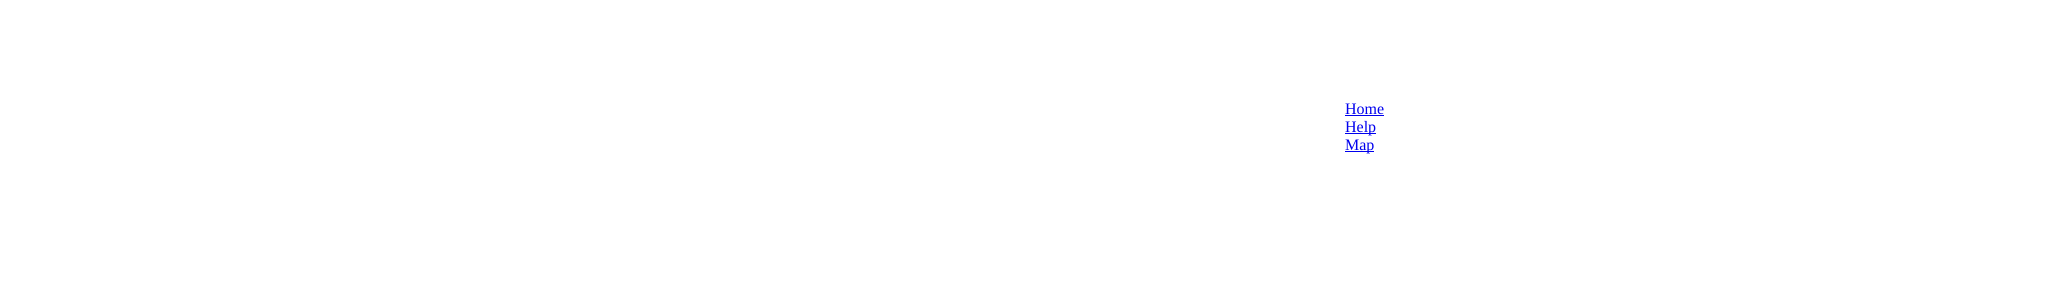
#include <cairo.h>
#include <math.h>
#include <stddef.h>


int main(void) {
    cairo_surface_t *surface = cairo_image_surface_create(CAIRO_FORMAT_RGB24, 2064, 303);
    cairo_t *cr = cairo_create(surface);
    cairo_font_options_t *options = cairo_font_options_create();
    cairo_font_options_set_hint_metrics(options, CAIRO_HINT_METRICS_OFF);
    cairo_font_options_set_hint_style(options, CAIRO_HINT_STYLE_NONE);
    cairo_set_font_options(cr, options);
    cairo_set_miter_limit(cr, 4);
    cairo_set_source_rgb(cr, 1, 1, 1);
    cairo_paint(cr);
    cairo_select_font_face(cr, "Liberation Serif", CAIRO_FONT_SLANT_NORMAL, CAIRO_FONT_WEIGHT_NORMAL);
    cairo_set_font_size(cr, 16);
    cairo_set_source_rgb(cr, 0, 0, 0.933);
    cairo_move_to(cr, 1345, 114);
    cairo_show_text(cr, "Home");
    cairo_rectangle(cr, 1345, 115, 39, 1);
    cairo_fill(cr);
    cairo_rectangle(cr, 1345, 133, 31, 1);
    cairo_fill(cr);
    cairo_move_to(cr, 1345, 132);
    cairo_show_text(cr, "Help");
    cairo_rectangle(cr, 1345, 151, 29, 1);
    cairo_fill(cr);
    cairo_move_to(cr, 1345, 150);
    cairo_show_text(cr, "Map");
    cairo_surface_write_to_png(surface, "page.png");
    cairo_font_options_destroy(options);
    cairo_destroy(cr);
    cairo_surface_destroy(surface);
    return 0;
}
